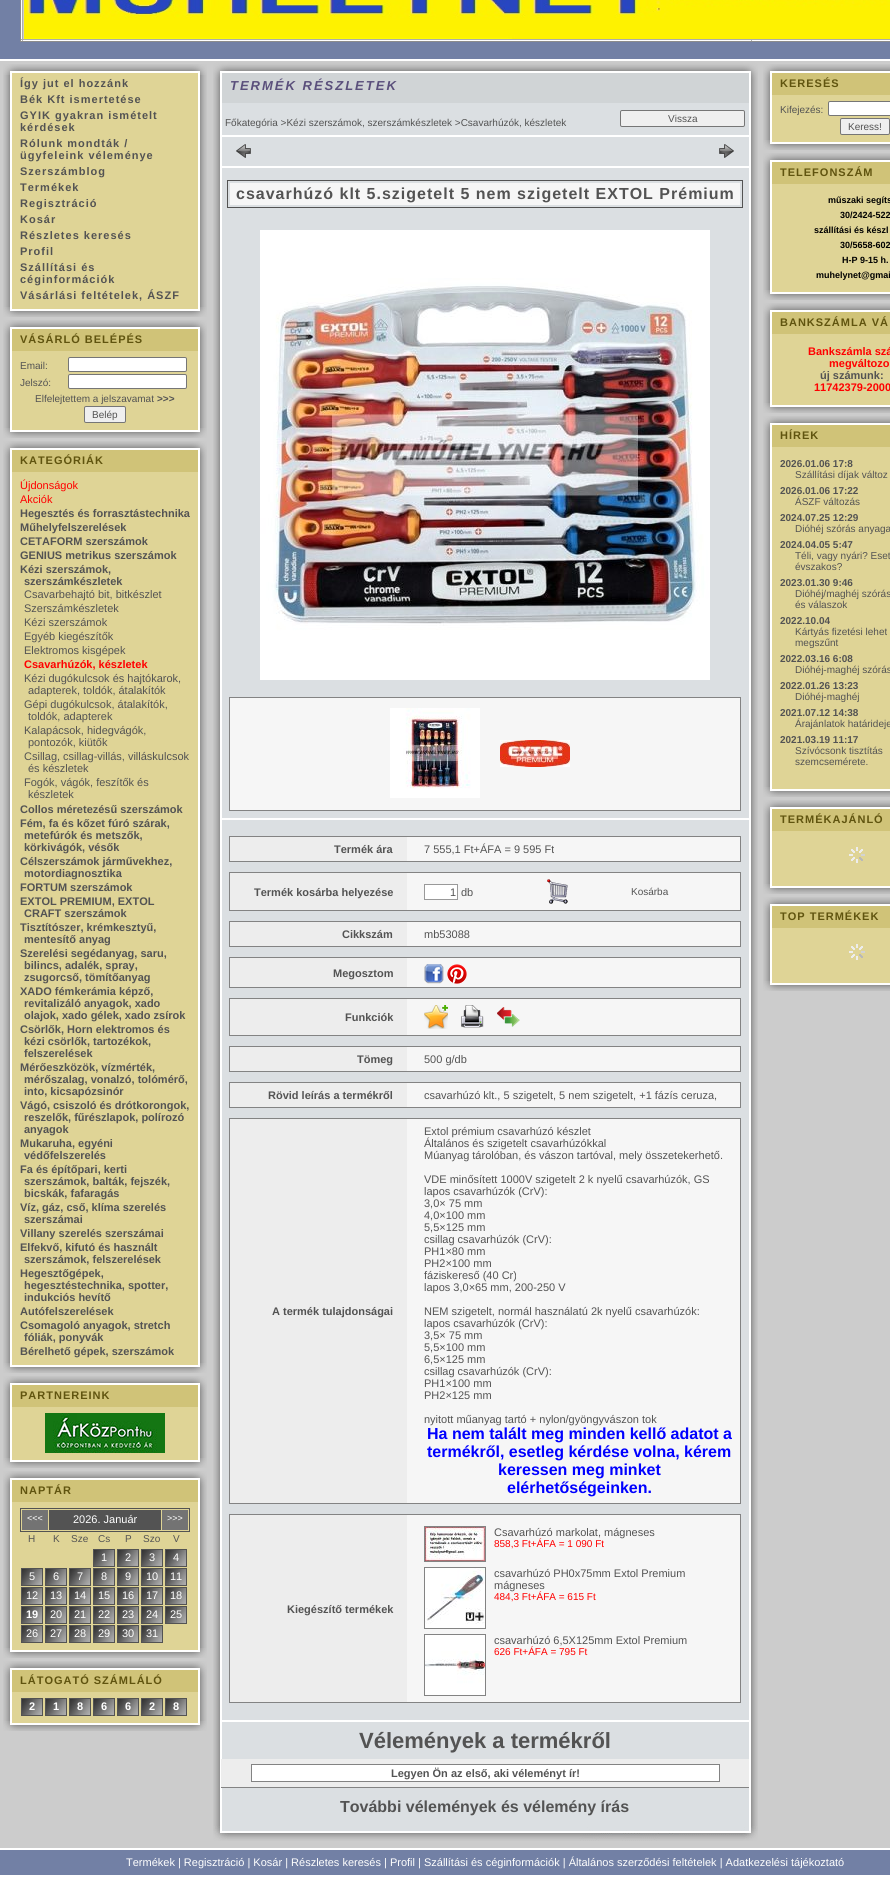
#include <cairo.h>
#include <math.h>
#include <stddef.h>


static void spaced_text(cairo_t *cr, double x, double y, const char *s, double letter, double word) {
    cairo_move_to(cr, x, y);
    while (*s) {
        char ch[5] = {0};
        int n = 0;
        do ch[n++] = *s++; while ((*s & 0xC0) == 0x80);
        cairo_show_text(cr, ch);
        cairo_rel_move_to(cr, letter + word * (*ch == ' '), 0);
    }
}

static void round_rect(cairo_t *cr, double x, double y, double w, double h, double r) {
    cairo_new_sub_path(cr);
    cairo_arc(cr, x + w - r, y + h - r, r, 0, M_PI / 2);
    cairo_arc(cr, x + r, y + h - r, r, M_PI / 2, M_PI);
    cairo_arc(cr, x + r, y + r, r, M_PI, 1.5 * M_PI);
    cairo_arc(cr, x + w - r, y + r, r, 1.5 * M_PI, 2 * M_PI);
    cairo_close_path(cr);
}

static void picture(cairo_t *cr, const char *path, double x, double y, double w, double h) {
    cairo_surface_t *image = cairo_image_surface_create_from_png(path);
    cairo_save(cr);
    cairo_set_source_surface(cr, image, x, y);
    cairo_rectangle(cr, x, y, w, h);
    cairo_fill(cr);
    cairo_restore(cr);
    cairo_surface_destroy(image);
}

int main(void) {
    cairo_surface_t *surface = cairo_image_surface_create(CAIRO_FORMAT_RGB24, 890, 1887);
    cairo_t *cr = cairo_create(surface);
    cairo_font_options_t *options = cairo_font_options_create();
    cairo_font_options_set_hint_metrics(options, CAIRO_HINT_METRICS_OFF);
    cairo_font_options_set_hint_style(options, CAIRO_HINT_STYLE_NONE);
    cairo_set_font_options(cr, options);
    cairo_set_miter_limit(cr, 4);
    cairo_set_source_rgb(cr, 1, 1, 1);
    cairo_paint(cr);
    cairo_set_source_rgb(cr, 0.8, 0.8, 0.8);
    cairo_rectangle(cr, 0, 61, 890, 1787);
    cairo_fill(cr);
    picture(cr, "img1.png", 0, 0, 890, 61);
    picture(cr, "img2.png", 20, 0, 4, 39);
    picture(cr, "img3.png", 24, 0, 866, 39);
    picture(cr, "img4.png", 20, 39, 870, 3);
    picture(cr, "img5.png", 213, 103, 545, 1723);
    picture(cr, "img6.png", 3, 64, 204, 11);
    picture(cr, "img7.png", 3, 75, 204, 232);
    cairo_select_font_face(cr, "Liberation Sans", CAIRO_FONT_SLANT_NORMAL, CAIRO_FONT_WEIGHT_BOLD);
    cairo_set_font_size(cr, 11);
    cairo_set_source_rgb(cr, 0.325, 0.325, 0.325);
    spaced_text(cr, 20, 87, "Így jut el hozzánk", 1, 0);
    spaced_text(cr, 20, 103, "Bék Kft ismertetése", 1, 0);
    spaced_text(cr, 20, 119, "GYIK gyakran ismételt", 1, 0);
    spaced_text(cr, 20, 131, "kérdések", 1, 0);
    spaced_text(cr, 20, 147, "Rólunk mondták /", 1, 0);
    spaced_text(cr, 20, 159, "ügyfeleink véleménye", 1, 0);
    spaced_text(cr, 20, 175, "Szerszámblog", 1, 0);
    spaced_text(cr, 20, 191, "Termékek", 1, 0);
    spaced_text(cr, 20, 207, "Regisztráció", 1, 0);
    spaced_text(cr, 20, 223, "Kosár", 1, 0);
    spaced_text(cr, 20, 239, "Részletes keresés", 1, 0);
    spaced_text(cr, 20, 255, "Profil", 1, 0);
    spaced_text(cr, 20, 271, "Szállítási és", 1, 0);
    spaced_text(cr, 20, 283, "céginformációk", 1, 0);
    spaced_text(cr, 20, 299, "Vásárlási feltételek, ÁSZF", 1, 0);
    picture(cr, "img8.png", 3, 307, 204, 10);
    picture(cr, "img9.png", 3, 320, 204, 32);
    cairo_set_source_rgb(cr, 0.376, 0.329, 0.059);
    spaced_text(cr, 20, 343, "VÁSÁRLÓ BELÉPÉS", 1, 0);
    picture(cr, "img10.png", 3, 352, 204, 76);
    cairo_select_font_face(cr, "Liberation Sans", CAIRO_FONT_SLANT_NORMAL, CAIRO_FONT_WEIGHT_NORMAL);
    cairo_set_font_size(cr, 10);
    cairo_set_source_rgb(cr, 0.325, 0.325, 0.325);
    cairo_move_to(cr, 20, 369);
    cairo_show_text(cr, "Email:");
    cairo_set_source_rgb(cr, 1, 1, 1);
    round_rect(cr, 68.5, 357.5, 118, 14, 1.5);
    cairo_fill_preserve(cr);
    cairo_set_source_rgb(cr, 0.463, 0.463, 0.463);
    cairo_set_line_width(cr, 1);
    cairo_stroke(cr);
    cairo_set_source_rgb(cr, 0.325, 0.325, 0.325);
    cairo_move_to(cr, 20, 386);
    cairo_show_text(cr, "Jelszó:");
    cairo_set_source_rgb(cr, 1, 1, 1);
    round_rect(cr, 68.5, 374.5, 118, 14, 1.5);
    cairo_fill_preserve(cr);
    cairo_set_source_rgb(cr, 0.463, 0.463, 0.463);
    cairo_stroke(cr);
    cairo_set_source_rgb(cr, 0.325, 0.325, 0.325);
    cairo_move_to(cr, 35, 402);
    cairo_show_text(cr, "Elfelejtettem a jelszavamat");
    cairo_select_font_face(cr, "Liberation Sans", CAIRO_FONT_SLANT_NORMAL, CAIRO_FONT_WEIGHT_BOLD);
    cairo_move_to(cr, 157, 402);
    cairo_show_text(cr, ">>>");
    cairo_set_source_rgb(cr, 0.937, 0.937, 0.937);
    round_rect(cr, 84.5, 406.5, 41, 16, 1.5);
    cairo_fill_preserve(cr);
    cairo_set_source_rgb(cr, 0.463, 0.463, 0.463);
    cairo_stroke(cr);
    cairo_select_font_face(cr, "Liberation Sans", CAIRO_FONT_SLANT_NORMAL, CAIRO_FONT_WEIGHT_NORMAL);
    cairo_set_source_rgb(cr, 0.325, 0.325, 0.325);
    cairo_move_to(cr, 92, 418);
    cairo_show_text(cr, "Belép");
    picture(cr, "img8.png", 3, 428, 204, 10);
    picture(cr, "img9.png", 3, 441, 204, 32);
    cairo_select_font_face(cr, "Liberation Sans", CAIRO_FONT_SLANT_NORMAL, CAIRO_FONT_WEIGHT_BOLD);
    cairo_set_font_size(cr, 11);
    cairo_set_source_rgb(cr, 0.376, 0.329, 0.059);
    spaced_text(cr, 20, 464, "KATEGÓRIÁK", 1, 0);
    picture(cr, "img11.png", 3, 473, 204, 890);
    cairo_select_font_face(cr, "Liberation Sans", CAIRO_FONT_SLANT_NORMAL, CAIRO_FONT_WEIGHT_NORMAL);
    cairo_set_source_rgb(cr, 1, 0, 0);
    cairo_move_to(cr, 20, 489);
    cairo_show_text(cr, "Újdonságok");
    cairo_move_to(cr, 20, 503);
    cairo_show_text(cr, "Akciók");
    cairo_select_font_face(cr, "Liberation Sans", CAIRO_FONT_SLANT_NORMAL, CAIRO_FONT_WEIGHT_BOLD);
    cairo_set_source_rgb(cr, 0.325, 0.325, 0.325);
    cairo_move_to(cr, 20, 517);
    cairo_show_text(cr, "Hegesztés és forrasztástechnika");
    cairo_move_to(cr, 20, 531);
    cairo_show_text(cr, "Műhelyfelszerelések");
    cairo_move_to(cr, 20, 545);
    cairo_show_text(cr, "CETAFORM szerszámok");
    cairo_move_to(cr, 20, 559);
    cairo_show_text(cr, "GENIUS metrikus szerszámok");
    cairo_move_to(cr, 20, 573);
    cairo_show_text(cr, "Kézi szerszámok,");
    cairo_move_to(cr, 24, 585);
    cairo_show_text(cr, "szerszámkészletek");
    cairo_select_font_face(cr, "Liberation Sans", CAIRO_FONT_SLANT_NORMAL, CAIRO_FONT_WEIGHT_NORMAL);
    cairo_move_to(cr, 24, 598);
    cairo_show_text(cr, "Csavarbehajtó bit, bitkészlet");
    cairo_move_to(cr, 24, 612);
    cairo_show_text(cr, "Szerszámkészletek");
    cairo_move_to(cr, 24, 626);
    cairo_show_text(cr, "Kézi szerszámok");
    cairo_move_to(cr, 24, 640);
    cairo_show_text(cr, "Egyéb kiegészítők");
    cairo_move_to(cr, 24, 654);
    cairo_show_text(cr, "Elektromos kisgépek");
    cairo_select_font_face(cr, "Liberation Sans", CAIRO_FONT_SLANT_NORMAL, CAIRO_FONT_WEIGHT_BOLD);
    cairo_set_source_rgb(cr, 1, 0, 0);
    cairo_move_to(cr, 24, 668);
    cairo_show_text(cr, "Csavarhúzók, készletek");
    cairo_select_font_face(cr, "Liberation Sans", CAIRO_FONT_SLANT_NORMAL, CAIRO_FONT_WEIGHT_NORMAL);
    cairo_set_source_rgb(cr, 0.325, 0.325, 0.325);
    cairo_move_to(cr, 24, 682);
    cairo_show_text(cr, "Kézi dugókulcsok és hajtókarok,");
    cairo_move_to(cr, 28, 694);
    cairo_show_text(cr, "adapterek, toldók, átalakítók");
    cairo_move_to(cr, 24, 708);
    cairo_show_text(cr, "Gépi dugókulcsok, átalakítók,");
    cairo_move_to(cr, 28, 720);
    cairo_show_text(cr, "toldók, adapterek");
    cairo_move_to(cr, 24, 734);
    cairo_show_text(cr, "Kalapácsok, hidegvágók,");
    cairo_move_to(cr, 28, 746);
    cairo_show_text(cr, "pontozók, kiütők");
    cairo_move_to(cr, 24, 760);
    cairo_show_text(cr, "Csillag, csillag-villás, villáskulcsok");
    cairo_move_to(cr, 28, 772);
    cairo_show_text(cr, "és készletek");
    cairo_move_to(cr, 24, 786);
    cairo_show_text(cr, "Fogók, vágók, feszítők és");
    cairo_move_to(cr, 28, 798);
    cairo_show_text(cr, "készletek");
    cairo_select_font_face(cr, "Liberation Sans", CAIRO_FONT_SLANT_NORMAL, CAIRO_FONT_WEIGHT_BOLD);
    cairo_move_to(cr, 20, 813);
    cairo_show_text(cr, "Collos méretezésű szerszámok");
    cairo_move_to(cr, 20, 827);
    cairo_show_text(cr, "Fém, fa és kőzet fúró szárak,");
    cairo_move_to(cr, 24, 839);
    cairo_show_text(cr, "metefúrók és metszők,");
    cairo_move_to(cr, 24, 851);
    cairo_show_text(cr, "körkivágók, vésők");
    cairo_move_to(cr, 20, 865);
    cairo_show_text(cr, "Célszerszámok járművekhez,");
    cairo_move_to(cr, 24, 877);
    cairo_show_text(cr, "motordiagnosztika");
    cairo_move_to(cr, 20, 891);
    cairo_show_text(cr, "FORTUM szerszámok");
    cairo_move_to(cr, 20, 905);
    cairo_show_text(cr, "EXTOL PREMIUM, EXTOL");
    cairo_move_to(cr, 24, 917);
    cairo_show_text(cr, "CRAFT szerszámok");
    cairo_move_to(cr, 20, 931);
    cairo_show_text(cr, "Tisztítószer, krémkesztyű,");
    cairo_move_to(cr, 24, 943);
    cairo_show_text(cr, "mentesítő anyag");
    cairo_move_to(cr, 20, 957);
    cairo_show_text(cr, "Szerelési segédanyag, saru,");
    cairo_move_to(cr, 24, 969);
    cairo_show_text(cr, "bilincs, adalék, spray,");
    cairo_move_to(cr, 24, 981);
    cairo_show_text(cr, "zsugorcső, tömítőanyag");
    cairo_move_to(cr, 20, 995);
    cairo_show_text(cr, "XADO fémkerámia képző,");
    cairo_move_to(cr, 24, 1007);
    cairo_show_text(cr, "revitalizáló anyagok, xado");
    cairo_move_to(cr, 24, 1019);
    cairo_show_text(cr, "olajok, xado gélek, xado zsírok");
    cairo_move_to(cr, 20, 1033);
    cairo_show_text(cr, "Csörlők, Horn elektromos és");
    cairo_move_to(cr, 24, 1045);
    cairo_show_text(cr, "kézi csörlők, tartozékok,");
    cairo_move_to(cr, 24, 1057);
    cairo_show_text(cr, "felszerelések");
    cairo_move_to(cr, 20, 1071);
    cairo_show_text(cr, "Mérőeszközök, vízmérték,");
    cairo_move_to(cr, 24, 1083);
    cairo_show_text(cr, "mérőszalag, vonalzó, tolómérő,");
    cairo_move_to(cr, 24, 1095);
    cairo_show_text(cr, "into, kicsapózsinór");
    cairo_move_to(cr, 20, 1109);
    cairo_show_text(cr, "Vágó, csiszoló és drótkorongok,");
    cairo_move_to(cr, 24, 1121);
    cairo_show_text(cr, "reszelők, fűrészlapok, polírozó");
    cairo_move_to(cr, 24, 1133);
    cairo_show_text(cr, "anyagok");
    cairo_move_to(cr, 20, 1147);
    cairo_show_text(cr, "Mukaruha, egyéni");
    cairo_move_to(cr, 24, 1159);
    cairo_show_text(cr, "védőfelszerelés");
    cairo_move_to(cr, 20, 1173);
    cairo_show_text(cr, "Fa és építőpari, kerti");
    cairo_move_to(cr, 24, 1185);
    cairo_show_text(cr, "szerszámok, balták, fejszék,");
    cairo_move_to(cr, 24, 1197);
    cairo_show_text(cr, "bicskák, fafaragás");
    cairo_move_to(cr, 20, 1211);
    cairo_show_text(cr, "Víz, gáz, cső, klíma szerelés");
    cairo_move_to(cr, 24, 1223);
    cairo_show_text(cr, "szerszámai");
    cairo_move_to(cr, 20, 1237);
    cairo_show_text(cr, "Villany szerelés szerszámai");
    cairo_move_to(cr, 20, 1251);
    cairo_show_text(cr, "Elfekvő, kifutó és használt");
    cairo_move_to(cr, 24, 1263);
    cairo_show_text(cr, "szerszámok, felszerelések");
    cairo_move_to(cr, 20, 1277);
    cairo_show_text(cr, "Hegesztőgépek,");
    cairo_move_to(cr, 24, 1289);
    cairo_show_text(cr, "hegesztéstechnika, spotter,");
    cairo_move_to(cr, 24, 1301);
    cairo_show_text(cr, "indukciós hevítő");
    cairo_move_to(cr, 20, 1315);
    cairo_show_text(cr, "Autófelszerelések");
    cairo_move_to(cr, 20, 1329);
    cairo_show_text(cr, "Csomagoló anyagok, stretch");
    cairo_move_to(cr, 24, 1341);
    cairo_show_text(cr, "fóliák, ponyvák");
    cairo_move_to(cr, 20, 1355);
    cairo_show_text(cr, "Bérelhető gépek, szerszámok");
    picture(cr, "img8.png", 3, 1363, 204, 10);
    picture(cr, "img9.png", 3, 1376, 204, 32);
    cairo_set_source_rgb(cr, 0.376, 0.329, 0.059);
    spaced_text(cr, 20, 1399, "PARTNEREINK", 1, 0);
    picture(cr, "img12.png", 3, 1408, 204, 50);
    picture(cr, "img13.png", 45, 1413, 120, 40);
    picture(cr, "img8.png", 3, 1458, 204, 10);
    picture(cr, "img9.png", 3, 1471, 204, 32);
    spaced_text(cr, 20, 1494, "NAPTÁR", 1, 0);
    picture(cr, "img14.png", 3, 1503, 204, 145);
    cairo_rectangle(cr, 20.5, 1508.5, 169, 23);
    cairo_set_source_rgb(cr, 0.325, 0.325, 0.325);
    cairo_stroke(cr);
    cairo_set_source_rgb(cr, 0.451, 0.451, 0.451);
    cairo_rectangle(cr, 22, 1510, 26, 20);
    cairo_fill(cr);
    cairo_select_font_face(cr, "Liberation Sans", CAIRO_FONT_SLANT_NORMAL, CAIRO_FONT_WEIGHT_NORMAL);
    cairo_set_font_size(cr, 9);
    cairo_set_source_rgb(cr, 1, 1, 1);
    cairo_move_to(cr, 27, 1521);
    cairo_show_text(cr, "<<<");
    cairo_set_source_rgb(cr, 0.325, 0.325, 0.325);
    cairo_rectangle(cr, 49, 1510, 112, 20);
    cairo_fill(cr);
    cairo_set_font_size(cr, 11);
    cairo_set_source_rgb(cr, 1, 1, 1);
    cairo_move_to(cr, 73, 1523);
    cairo_show_text(cr, "2026. Január");
    cairo_set_source_rgb(cr, 0.451, 0.451, 0.451);
    cairo_rectangle(cr, 162, 1510, 26, 20);
    cairo_fill(cr);
    cairo_set_font_size(cr, 9);
    cairo_set_source_rgb(cr, 1, 1, 1);
    cairo_move_to(cr, 167, 1521);
    cairo_show_text(cr, ">>>");
    cairo_set_font_size(cr, 10);
    cairo_set_source_rgb(cr, 0.325, 0.325, 0.325);
    cairo_move_to(cr, 28, 1542);
    cairo_show_text(cr, "H");
    cairo_move_to(cr, 53, 1542);
    cairo_show_text(cr, "K");
    cairo_move_to(cr, 71, 1542);
    cairo_show_text(cr, "Sze");
    cairo_move_to(cr, 98, 1542);
    cairo_show_text(cr, "Cs");
    cairo_move_to(cr, 125, 1542);
    cairo_show_text(cr, "P");
    cairo_move_to(cr, 143, 1542);
    cairo_show_text(cr, "Szo");
    cairo_move_to(cr, 173, 1542);
    cairo_show_text(cr, "V");
    picture(cr, "img15.png", 93, 1549, 22, 18);
    cairo_set_font_size(cr, 11);
    cairo_set_source_rgb(cr, 1, 1, 1);
    cairo_move_to(cr, 101, 1561);
    cairo_show_text(cr, "1");
    picture(cr, "img15.png", 117, 1549, 22, 18);
    cairo_move_to(cr, 125, 1561);
    cairo_show_text(cr, "2");
    picture(cr, "img15.png", 141, 1549, 22, 18);
    cairo_move_to(cr, 149, 1561);
    cairo_show_text(cr, "3");
    picture(cr, "img15.png", 165, 1549, 22, 18);
    cairo_move_to(cr, 173, 1561);
    cairo_show_text(cr, "4");
    picture(cr, "img15.png", 21, 1568, 22, 18);
    cairo_move_to(cr, 29, 1580);
    cairo_show_text(cr, "5");
    picture(cr, "img15.png", 45, 1568, 22, 18);
    cairo_move_to(cr, 53, 1580);
    cairo_show_text(cr, "6");
    picture(cr, "img15.png", 69, 1568, 22, 18);
    cairo_move_to(cr, 77, 1580);
    cairo_show_text(cr, "7");
    picture(cr, "img15.png", 93, 1568, 22, 18);
    cairo_move_to(cr, 101, 1580);
    cairo_show_text(cr, "8");
    picture(cr, "img15.png", 117, 1568, 22, 18);
    cairo_move_to(cr, 125, 1580);
    cairo_show_text(cr, "9");
    picture(cr, "img15.png", 141, 1568, 22, 18);
    cairo_move_to(cr, 146, 1580);
    cairo_show_text(cr, "10");
    picture(cr, "img15.png", 165, 1568, 22, 18);
    cairo_move_to(cr, 170, 1580);
    cairo_show_text(cr, "11");
    picture(cr, "img15.png", 21, 1587, 22, 18);
    cairo_move_to(cr, 26, 1599);
    cairo_show_text(cr, "12");
    picture(cr, "img15.png", 45, 1587, 22, 18);
    cairo_move_to(cr, 50, 1599);
    cairo_show_text(cr, "13");
    picture(cr, "img15.png", 69, 1587, 22, 18);
    cairo_move_to(cr, 74, 1599);
    cairo_show_text(cr, "14");
    picture(cr, "img15.png", 93, 1587, 22, 18);
    cairo_move_to(cr, 98, 1599);
    cairo_show_text(cr, "15");
    picture(cr, "img15.png", 117, 1587, 22, 18);
    cairo_move_to(cr, 122, 1599);
    cairo_show_text(cr, "16");
    picture(cr, "img15.png", 141, 1587, 22, 18);
    cairo_move_to(cr, 146, 1599);
    cairo_show_text(cr, "17");
    picture(cr, "img15.png", 165, 1587, 22, 18);
    cairo_move_to(cr, 170, 1599);
    cairo_show_text(cr, "18");
    picture(cr, "img15.png", 21, 1606, 22, 18);
    cairo_select_font_face(cr, "Liberation Sans", CAIRO_FONT_SLANT_NORMAL, CAIRO_FONT_WEIGHT_BOLD);
    cairo_move_to(cr, 26, 1618);
    cairo_show_text(cr, "19");
    picture(cr, "img15.png", 45, 1606, 22, 18);
    cairo_select_font_face(cr, "Liberation Sans", CAIRO_FONT_SLANT_NORMAL, CAIRO_FONT_WEIGHT_NORMAL);
    cairo_move_to(cr, 50, 1618);
    cairo_show_text(cr, "20");
    picture(cr, "img15.png", 69, 1606, 22, 18);
    cairo_move_to(cr, 74, 1618);
    cairo_show_text(cr, "21");
    picture(cr, "img15.png", 93, 1606, 22, 18);
    cairo_move_to(cr, 98, 1618);
    cairo_show_text(cr, "22");
    picture(cr, "img15.png", 117, 1606, 22, 18);
    cairo_move_to(cr, 122, 1618);
    cairo_show_text(cr, "23");
    picture(cr, "img15.png", 141, 1606, 22, 18);
    cairo_move_to(cr, 146, 1618);
    cairo_show_text(cr, "24");
    picture(cr, "img15.png", 165, 1606, 22, 18);
    cairo_move_to(cr, 170, 1618);
    cairo_show_text(cr, "25");
    picture(cr, "img15.png", 21, 1625, 22, 18);
    cairo_move_to(cr, 26, 1637);
    cairo_show_text(cr, "26");
    picture(cr, "img15.png", 45, 1625, 22, 18);
    cairo_move_to(cr, 50, 1637);
    cairo_show_text(cr, "27");
    picture(cr, "img15.png", 69, 1625, 22, 18);
    cairo_move_to(cr, 74, 1637);
    cairo_show_text(cr, "28");
    picture(cr, "img15.png", 93, 1625, 22, 18);
    cairo_move_to(cr, 98, 1637);
    cairo_show_text(cr, "29");
    picture(cr, "img15.png", 117, 1625, 22, 18);
    cairo_move_to(cr, 122, 1637);
    cairo_show_text(cr, "30");
    picture(cr, "img15.png", 141, 1625, 22, 18);
    cairo_move_to(cr, 146, 1637);
    cairo_show_text(cr, "31");
    picture(cr, "img8.png", 3, 1648, 204, 10);
    picture(cr, "img9.png", 3, 1661, 204, 32);
    cairo_select_font_face(cr, "Liberation Sans", CAIRO_FONT_SLANT_NORMAL, CAIRO_FONT_WEIGHT_BOLD);
    cairo_set_source_rgb(cr, 0.376, 0.329, 0.059);
    spaced_text(cr, 20, 1684, "LÁTOGATÓ SZÁMLÁLÓ", 1, 0);
    picture(cr, "img16.png", 3, 1693, 204, 28);
    picture(cr, "img15.png", 21, 1698, 22, 18);
    cairo_set_source_rgb(cr, 1, 1, 1);
    cairo_move_to(cr, 29, 1710);
    cairo_show_text(cr, "2");
    picture(cr, "img15.png", 45, 1698, 22, 18);
    cairo_move_to(cr, 53, 1710);
    cairo_show_text(cr, "1");
    picture(cr, "img15.png", 69, 1698, 22, 18);
    cairo_move_to(cr, 77, 1710);
    cairo_show_text(cr, "8");
    picture(cr, "img15.png", 93, 1698, 22, 18);
    cairo_move_to(cr, 101, 1710);
    cairo_show_text(cr, "6");
    picture(cr, "img15.png", 117, 1698, 22, 18);
    cairo_move_to(cr, 125, 1710);
    cairo_show_text(cr, "6");
    picture(cr, "img15.png", 141, 1698, 22, 18);
    cairo_move_to(cr, 149, 1710);
    cairo_show_text(cr, "2");
    picture(cr, "img15.png", 165, 1698, 22, 18);
    cairo_move_to(cr, 173, 1710);
    cairo_show_text(cr, "8");
    picture(cr, "img8.png", 3, 1721, 204, 10);
    picture(cr, "img17.png", 213, 61, 545, 42);
    cairo_select_font_face(cr, "Liberation Sans", CAIRO_FONT_SLANT_ITALIC, CAIRO_FONT_WEIGHT_BOLD);
    cairo_set_font_size(cr, 13);
    cairo_set_source_rgb(cr, 0.353, 0.31, 0.482);
    spaced_text(cr, 230, 90, "TERMÉK RÉSZLETEK", 2, 0);
    cairo_select_font_face(cr, "Liberation Sans", CAIRO_FONT_SLANT_NORMAL, CAIRO_FONT_WEIGHT_NORMAL);
    cairo_set_font_size(cr, 10);
    cairo_set_source_rgb(cr, 0.325, 0.325, 0.325);
    cairo_move_to(cr, 225, 126);
    cairo_show_text(cr, "Főkategória >Kézi szerszámok, szerszámkészletek >Csavarhúzók, készletek");
    cairo_set_source_rgb(cr, 0.937, 0.937, 0.937);
    round_rect(cr, 620.5, 110.5, 124, 16, 1.5);
    cairo_fill_preserve(cr);
    cairo_set_source_rgb(cr, 0.463, 0.463, 0.463);
    cairo_stroke(cr);
    cairo_set_source_rgb(cr, 0.325, 0.325, 0.325);
    cairo_move_to(cr, 668, 122);
    cairo_show_text(cr, "Vissza");
    cairo_set_source_rgb(cr, 1, 1, 1);
    cairo_rectangle(cr, 222, 135, 527, 2);
    cairo_fill(cr);
    picture(cr, "img18.png", 236, 144, 15, 14);
    picture(cr, "img19.png", 719, 144, 15, 14);
    cairo_rectangle(cr, 222, 166, 527, 2);
    cairo_fill(cr);
    cairo_rectangle(cr, 227.5, 180.5, 515, 27);
    cairo_set_source_rgb(cr, 0.325, 0.325, 0.325);
    cairo_stroke(cr);
    cairo_set_source_rgb(cr, 0.961, 0.961, 0.961);
    cairo_rectangle(cr, 230, 183, 510, 22);
    cairo_fill(cr);
    cairo_select_font_face(cr, "Liberation Sans", CAIRO_FONT_SLANT_NORMAL, CAIRO_FONT_WEIGHT_BOLD);
    cairo_set_font_size(cr, 16);
    cairo_set_source_rgb(cr, 0.325, 0.325, 0.325);
    spaced_text(cr, 236, 199, "csavarhúzó klt 5.szigetelt 5 nem szigetelt EXTOL Prémium", 1, 0);
    picture(cr, "img20.png", 260, 230, 450, 450);
    cairo_set_source_rgb(cr, 0.961, 0.961, 0.961);
    cairo_rectangle(cr, 229.5, 697.5, 511, 113);
    cairo_fill_preserve(cr);
    cairo_set_source_rgb(cr, 0.514, 0.514, 0.514);
    cairo_stroke(cr);
    picture(cr, "img21.png", 390, 708, 90, 90);
    picture(cr, "img22.png", 500, 740, 70, 27);
    cairo_set_source_rgb(cr, 1, 1, 1);
    cairo_rectangle(cr, 222, 818, 527, 2);
    cairo_fill(cr);
    cairo_rectangle(cr, 229.5, 836.5, 511, 25);
    cairo_set_source_rgb(cr, 0.514, 0.514, 0.514);
    cairo_stroke(cr);
    cairo_set_source_rgb(cr, 0.929, 0.929, 0.929);
    cairo_rectangle(cr, 230, 837, 177, 24);
    cairo_fill(cr);
    cairo_set_font_size(cr, 11);
    cairo_set_source_rgb(cr, 0.325, 0.325, 0.325);
    cairo_move_to(cr, 334, 853);
    cairo_show_text(cr, "Termék ára");
    cairo_set_source_rgb(cr, 0.961, 0.961, 0.961);
    cairo_rectangle(cr, 407, 837, 333, 24);
    cairo_fill(cr);
    cairo_select_font_face(cr, "Liberation Sans", CAIRO_FONT_SLANT_NORMAL, CAIRO_FONT_WEIGHT_NORMAL);
    cairo_set_source_rgb(cr, 0.325, 0.325, 0.325);
    cairo_move_to(cr, 424, 853);
    cairo_show_text(cr, "7 555,1 Ft+ÁFA = 9 595 Ft");
    cairo_rectangle(cr, 229.5, 872.5, 511, 38);
    cairo_set_source_rgb(cr, 0.514, 0.514, 0.514);
    cairo_stroke(cr);
    cairo_set_source_rgb(cr, 0.929, 0.929, 0.929);
    cairo_rectangle(cr, 230, 873, 177, 37);
    cairo_fill(cr);
    cairo_select_font_face(cr, "Liberation Sans", CAIRO_FONT_SLANT_NORMAL, CAIRO_FONT_WEIGHT_BOLD);
    cairo_set_source_rgb(cr, 0.325, 0.325, 0.325);
    cairo_move_to(cr, 254, 896);
    cairo_show_text(cr, "Termék kosárba helyezése");
    cairo_set_source_rgb(cr, 0.961, 0.961, 0.961);
    cairo_rectangle(cr, 407, 873, 333, 37);
    cairo_fill(cr);
    cairo_set_source_rgb(cr, 1, 1, 1);
    cairo_rectangle(cr, 424.5, 884.5, 33, 15);
    cairo_fill_preserve(cr);
    cairo_set_source_rgb(cr, 0.6, 0.6, 0.6);
    cairo_stroke(cr);
    cairo_select_font_face(cr, "Liberation Sans", CAIRO_FONT_SLANT_NORMAL, CAIRO_FONT_WEIGHT_NORMAL);
    cairo_set_source_rgb(cr, 0.325, 0.325, 0.325);
    cairo_move_to(cr, 450, 896);
    cairo_show_text(cr, "1");
    cairo_move_to(cr, 461, 896);
    cairo_show_text(cr, "db");
    picture(cr, "img23.png", 547, 879, 21, 25);
    cairo_set_font_size(cr, 10);
    cairo_move_to(cr, 631, 895);
    cairo_show_text(cr, "Kosárba");
    cairo_rectangle(cr, 229.5, 921.5, 511, 25);
    cairo_set_source_rgb(cr, 0.514, 0.514, 0.514);
    cairo_stroke(cr);
    cairo_set_source_rgb(cr, 0.929, 0.929, 0.929);
    cairo_rectangle(cr, 230, 922, 177, 24);
    cairo_fill(cr);
    cairo_select_font_face(cr, "Liberation Sans", CAIRO_FONT_SLANT_NORMAL, CAIRO_FONT_WEIGHT_BOLD);
    cairo_set_font_size(cr, 11);
    cairo_set_source_rgb(cr, 0.325, 0.325, 0.325);
    cairo_move_to(cr, 342, 938);
    cairo_show_text(cr, "Cikkszám");
    cairo_set_source_rgb(cr, 0.961, 0.961, 0.961);
    cairo_rectangle(cr, 407, 922, 333, 24);
    cairo_fill(cr);
    cairo_select_font_face(cr, "Liberation Sans", CAIRO_FONT_SLANT_NORMAL, CAIRO_FONT_WEIGHT_NORMAL);
    cairo_set_source_rgb(cr, 0.325, 0.325, 0.325);
    cairo_move_to(cr, 424, 938);
    cairo_show_text(cr, "mb53088");
    cairo_rectangle(cr, 229.5, 957.5, 511, 30);
    cairo_set_source_rgb(cr, 0.514, 0.514, 0.514);
    cairo_stroke(cr);
    cairo_set_source_rgb(cr, 0.929, 0.929, 0.929);
    cairo_rectangle(cr, 230, 958, 177, 29);
    cairo_fill(cr);
    cairo_select_font_face(cr, "Liberation Sans", CAIRO_FONT_SLANT_NORMAL, CAIRO_FONT_WEIGHT_BOLD);
    cairo_set_source_rgb(cr, 0.325, 0.325, 0.325);
    cairo_move_to(cr, 333, 977);
    cairo_show_text(cr, "Megosztom");
    cairo_set_source_rgb(cr, 0.961, 0.961, 0.961);
    cairo_rectangle(cr, 407, 958, 333, 29);
    cairo_fill(cr);
    picture(cr, "img24.png", 424, 964, 20, 20);
    picture(cr, "img25.png", 447, 964, 20, 20);
    cairo_rectangle(cr, 229.5, 998.5, 511, 37);
    cairo_set_source_rgb(cr, 0.514, 0.514, 0.514);
    cairo_stroke(cr);
    cairo_set_source_rgb(cr, 0.929, 0.929, 0.929);
    cairo_rectangle(cr, 230, 999, 177, 36);
    cairo_fill(cr);
    cairo_set_source_rgb(cr, 0.325, 0.325, 0.325);
    cairo_move_to(cr, 345, 1021);
    cairo_show_text(cr, "Funkciók");
    cairo_set_source_rgb(cr, 0.961, 0.961, 0.961);
    cairo_rectangle(cr, 407, 999, 333, 36);
    cairo_fill(cr);
    picture(cr, "img26.png", 424, 1005, 24, 24);
    picture(cr, "img27.png", 461, 1005, 23, 23);
    picture(cr, "img28.png", 497, 1007, 23, 20);
    cairo_rectangle(cr, 229.5, 1046.5, 511, 25);
    cairo_set_source_rgb(cr, 0.514, 0.514, 0.514);
    cairo_stroke(cr);
    cairo_set_source_rgb(cr, 0.929, 0.929, 0.929);
    cairo_rectangle(cr, 230, 1047, 177, 24);
    cairo_fill(cr);
    cairo_set_source_rgb(cr, 0.325, 0.325, 0.325);
    cairo_move_to(cr, 357, 1063);
    cairo_show_text(cr, "Tömeg");
    cairo_set_source_rgb(cr, 0.961, 0.961, 0.961);
    cairo_rectangle(cr, 407, 1047, 333, 24);
    cairo_fill(cr);
    cairo_select_font_face(cr, "Liberation Sans", CAIRO_FONT_SLANT_NORMAL, CAIRO_FONT_WEIGHT_NORMAL);
    cairo_set_source_rgb(cr, 0.325, 0.325, 0.325);
    cairo_move_to(cr, 424, 1063);
    cairo_show_text(cr, "500 g/db");
    cairo_rectangle(cr, 229.5, 1082.5, 511, 25);
    cairo_set_source_rgb(cr, 0.514, 0.514, 0.514);
    cairo_stroke(cr);
    cairo_set_source_rgb(cr, 0.929, 0.929, 0.929);
    cairo_rectangle(cr, 230, 1083, 177, 24);
    cairo_fill(cr);
    cairo_select_font_face(cr, "Liberation Sans", CAIRO_FONT_SLANT_NORMAL, CAIRO_FONT_WEIGHT_BOLD);
    cairo_set_source_rgb(cr, 0.325, 0.325, 0.325);
    cairo_move_to(cr, 268, 1099);
    cairo_show_text(cr, "Rövid leírás a termékről");
    cairo_set_source_rgb(cr, 0.961, 0.961, 0.961);
    cairo_rectangle(cr, 407, 1083, 333, 24);
    cairo_fill(cr);
    cairo_select_font_face(cr, "Liberation Sans", CAIRO_FONT_SLANT_NORMAL, CAIRO_FONT_WEIGHT_NORMAL);
    cairo_set_source_rgb(cr, 0.325, 0.325, 0.325);
    cairo_move_to(cr, 424, 1099);
    cairo_show_text(cr, "csavarhúzó klt., 5 szigetelt, 5 nem szigetelt, +1 fázís ceruza,");
    cairo_rectangle(cr, 229.5, 1118.5, 511, 385);
    cairo_set_source_rgb(cr, 0.514, 0.514, 0.514);
    cairo_stroke(cr);
    cairo_set_source_rgb(cr, 0.929, 0.929, 0.929);
    cairo_rectangle(cr, 230, 1119, 177, 384);
    cairo_fill(cr);
    cairo_select_font_face(cr, "Liberation Sans", CAIRO_FONT_SLANT_NORMAL, CAIRO_FONT_WEIGHT_BOLD);
    cairo_set_source_rgb(cr, 0.325, 0.325, 0.325);
    cairo_move_to(cr, 272, 1315);
    cairo_show_text(cr, "A termék tulajdonságai");
    cairo_set_source_rgb(cr, 0.961, 0.961, 0.961);
    cairo_rectangle(cr, 407, 1119, 333, 384);
    cairo_fill(cr);
    cairo_select_font_face(cr, "Liberation Sans", CAIRO_FONT_SLANT_NORMAL, CAIRO_FONT_WEIGHT_NORMAL);
    cairo_set_source_rgb(cr, 0.325, 0.325, 0.325);
    cairo_move_to(cr, 424, 1135);
    cairo_show_text(cr, "Extol prémium csavarhúzó készlet");
    cairo_move_to(cr, 424, 1147);
    cairo_show_text(cr, "Általános és szigetelt csavarhúzókkal");
    cairo_move_to(cr, 424, 1159);
    cairo_show_text(cr, "Múanyag tárolóban, és vászon tartóval, mely összetekerhető.");
    cairo_move_to(cr, 424, 1183);
    cairo_show_text(cr, "VDE minősített 1000V szigetelt 2 k nyelű csavarhúzók, GS");
    cairo_move_to(cr, 424, 1195);
    cairo_show_text(cr, "lapos csavarhúzók (CrV):");
    cairo_move_to(cr, 424, 1207);
    cairo_show_text(cr, "3,0× 75 mm");
    cairo_move_to(cr, 424, 1219);
    cairo_show_text(cr, "4,0×100 mm");
    cairo_move_to(cr, 424, 1231);
    cairo_show_text(cr, "5,5×125 mm");
    cairo_move_to(cr, 424, 1243);
    cairo_show_text(cr, "csillag csavarhúzók (CrV):");
    cairo_move_to(cr, 424, 1255);
    cairo_show_text(cr, "PH1×80 mm");
    cairo_move_to(cr, 424, 1267);
    cairo_show_text(cr, "PH2×100 mm");
    cairo_move_to(cr, 424, 1279);
    cairo_show_text(cr, "fáziskereső (40 Cr)");
    cairo_move_to(cr, 424, 1291);
    cairo_show_text(cr, "lapos 3,0×65 mm, 200-250 V");
    cairo_move_to(cr, 424, 1315);
    cairo_show_text(cr, "NEM szigetelt, normál használatú 2k nyelű csavarhúzók:");
    cairo_move_to(cr, 424, 1327);
    cairo_show_text(cr, "lapos csavarhúzók (CrV):");
    cairo_move_to(cr, 424, 1339);
    cairo_show_text(cr, "3,5× 75 mm");
    cairo_move_to(cr, 424, 1351);
    cairo_show_text(cr, "5,5×100 mm");
    cairo_move_to(cr, 424, 1363);
    cairo_show_text(cr, "6,5×125 mm");
    cairo_move_to(cr, 424, 1375);
    cairo_show_text(cr, "csillag csavarhúzók (CrV):");
    cairo_move_to(cr, 424, 1387);
    cairo_show_text(cr, "PH1×100 mm");
    cairo_move_to(cr, 424, 1399);
    cairo_show_text(cr, "PH2×125 mm");
    cairo_move_to(cr, 424, 1423);
    cairo_show_text(cr, "nyitott műanyag tartó + nylon/gyöngyvászon tok");
    cairo_select_font_face(cr, "Liberation Sans", CAIRO_FONT_SLANT_NORMAL, CAIRO_FONT_WEIGHT_BOLD);
    cairo_set_font_size(cr, 16);
    cairo_set_source_rgb(cr, 0, 0, 1);
    cairo_move_to(cr, 427, 1439);
    cairo_show_text(cr, "Ha nem talált meg minden kellő adatot a");
    cairo_move_to(cr, 427, 1457);
    cairo_show_text(cr, "termékről, esetleg kérdése volna, kérem");
    cairo_move_to(cr, 498, 1475);
    cairo_show_text(cr, "keressen meg minket");
    cairo_move_to(cr, 507, 1493);
    cairo_show_text(cr, "elérhetőségeinken.");
    cairo_rectangle(cr, 229.5, 1514.5, 511, 188);
    cairo_set_source_rgb(cr, 0.514, 0.514, 0.514);
    cairo_stroke(cr);
    cairo_set_source_rgb(cr, 0.929, 0.929, 0.929);
    cairo_rectangle(cr, 230, 1515, 177, 187);
    cairo_fill(cr);
    cairo_set_font_size(cr, 11);
    cairo_set_source_rgb(cr, 0.325, 0.325, 0.325);
    cairo_move_to(cr, 287, 1613);
    cairo_show_text(cr, "Kiegészítő termékek");
    cairo_set_source_rgb(cr, 0.961, 0.961, 0.961);
    cairo_rectangle(cr, 407, 1515, 333, 187);
    cairo_fill(cr);
    cairo_rectangle(cr, 424.5, 1526.5, 61, 35);
    cairo_set_source_rgb(cr, 0.514, 0.514, 0.514);
    cairo_stroke(cr);
    picture(cr, "img29.png", 425, 1527, 60, 34);
    cairo_select_font_face(cr, "Liberation Sans", CAIRO_FONT_SLANT_NORMAL, CAIRO_FONT_WEIGHT_NORMAL);
    cairo_set_source_rgb(cr, 0.325, 0.325, 0.325);
    cairo_move_to(cr, 494, 1536);
    cairo_show_text(cr, "Csavarhúzó markolat, mágneses");
    cairo_set_font_size(cr, 10);
    cairo_set_source_rgb(cr, 1, 0, 0);
    cairo_move_to(cr, 494, 1547);
    cairo_show_text(cr, "858,3 Ft+ÁFA = 1 090 Ft");
    cairo_rectangle(cr, 424.5, 1567.5, 61, 61);
    cairo_set_source_rgb(cr, 0.514, 0.514, 0.514);
    cairo_stroke(cr);
    picture(cr, "img30.png", 425, 1568, 60, 60);
    cairo_set_font_size(cr, 11);
    cairo_set_source_rgb(cr, 0.325, 0.325, 0.325);
    cairo_move_to(cr, 494, 1577);
    cairo_show_text(cr, "csavarhúzó PH0x75mm Extol Premium");
    cairo_move_to(cr, 494, 1589);
    cairo_show_text(cr, "mágneses");
    cairo_set_font_size(cr, 10);
    cairo_set_source_rgb(cr, 1, 0, 0);
    cairo_move_to(cr, 494, 1600);
    cairo_show_text(cr, "484,3 Ft+ÁFA = 615 Ft");
    cairo_rectangle(cr, 424.5, 1634.5, 61, 61);
    cairo_set_source_rgb(cr, 0.514, 0.514, 0.514);
    cairo_stroke(cr);
    picture(cr, "img31.png", 425, 1635, 60, 60);
    cairo_set_font_size(cr, 11);
    cairo_set_source_rgb(cr, 0.325, 0.325, 0.325);
    cairo_move_to(cr, 494, 1644);
    cairo_show_text(cr, "csavarhúzó 6,5X125mm Extol Premium");
    cairo_set_font_size(cr, 10);
    cairo_set_source_rgb(cr, 1, 0, 0);
    cairo_move_to(cr, 494, 1655);
    cairo_show_text(cr, "626 Ft+ÁFA = 795 Ft");
    cairo_set_source_rgb(cr, 1, 1, 1);
    cairo_rectangle(cr, 222, 1720, 527, 2);
    cairo_fill(cr);
    cairo_select_font_face(cr, "Liberation Sans", CAIRO_FONT_SLANT_NORMAL, CAIRO_FONT_WEIGHT_BOLD);
    cairo_set_font_size(cr, 22);
    cairo_set_source_rgb(cr, 0.325, 0.325, 0.325);
    cairo_move_to(cr, 359, 1748);
    cairo_show_text(cr, "Vélemények a termékről");
    cairo_set_source_rgb(cr, 0.929, 0.929, 0.929);
    cairo_rectangle(cr, 221, 1759, 528, 28);
    cairo_fill(cr);
    cairo_set_source_rgb(cr, 0.514, 0.514, 0.514);
    cairo_rectangle(cr, 221, 1787, 528, 1);
    cairo_fill(cr);
    cairo_set_source_rgb(cr, 1, 1, 1);
    cairo_rectangle(cr, 251.5, 1764.5, 468, 17);
    cairo_fill_preserve(cr);
    cairo_set_source_rgb(cr, 0.514, 0.514, 0.514);
    cairo_stroke(cr);
    cairo_set_font_size(cr, 11);
    cairo_set_source_rgb(cr, 0.325, 0.325, 0.325);
    cairo_move_to(cr, 391, 1777);
    cairo_show_text(cr, "Legyen Ön az első, aki véleményt ír!");
    cairo_set_font_size(cr, 16);
    cairo_move_to(cr, 340, 1812);
    cairo_show_text(cr, "További vélemények és vélemény írás");
    picture(cr, "img32.png", 763, 64, 127, 32);
    cairo_set_font_size(cr, 11);
    cairo_set_source_rgb(cr, 0.376, 0.329, 0.059);
    spaced_text(cr, 780, 87, "KERESÉS", 1, 0);
    picture(cr, "img33.png", 763, 96, 127, 44);
    cairo_select_font_face(cr, "Liberation Sans", CAIRO_FONT_SLANT_NORMAL, CAIRO_FONT_WEIGHT_NORMAL);
    cairo_set_font_size(cr, 10);
    cairo_set_source_rgb(cr, 0.325, 0.325, 0.325);
    cairo_move_to(cr, 780, 113);
    cairo_show_text(cr, "Kifejezés:");
    cairo_set_source_rgb(cr, 1, 1, 1);
    round_rect(cr, 828.5, 101.5, 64, 14, 1.5);
    cairo_fill_preserve(cr);
    cairo_set_source_rgb(cr, 0.463, 0.463, 0.463);
    cairo_stroke(cr);
    cairo_set_source_rgb(cr, 0.937, 0.937, 0.937);
    round_rect(cr, 840.5, 118.5, 49, 16, 1.5);
    cairo_fill_preserve(cr);
    cairo_set_source_rgb(cr, 0.463, 0.463, 0.463);
    cairo_stroke(cr);
    cairo_set_source_rgb(cr, 0.325, 0.325, 0.325);
    cairo_move_to(cr, 848, 130);
    cairo_show_text(cr, "Keress!");
    picture(cr, "img34.png", 763, 140, 127, 10);
    picture(cr, "img32.png", 763, 153, 127, 32);
    cairo_select_font_face(cr, "Liberation Sans", CAIRO_FONT_SLANT_NORMAL, CAIRO_FONT_WEIGHT_BOLD);
    cairo_set_font_size(cr, 11);
    cairo_set_source_rgb(cr, 0.376, 0.329, 0.059);
    spaced_text(cr, 780, 176, "TELEFONSZÁM", 1, 0);
    picture(cr, "img35.png", 763, 185, 127, 105);
    cairo_set_font_size(cr, 9);
    cairo_set_source_rgb(cr, 0, 0, 0);
    cairo_move_to(cr, 828, 203);
    cairo_show_text(cr, "műszaki segíts");
    cairo_move_to(cr, 840, 218);
    cairo_show_text(cr, "30/2424-522");
    cairo_move_to(cr, 814, 233);
    cairo_show_text(cr, "szállítási és készl");
    cairo_move_to(cr, 840, 248);
    cairo_show_text(cr, "30/5658-602");
    cairo_move_to(cr, 842, 263);
    cairo_show_text(cr, "H-P 9-15 h.");
    cairo_move_to(cr, 816, 278);
    cairo_show_text(cr, "muhelynet@gmai");
    picture(cr, "img34.png", 763, 290, 127, 10);
    picture(cr, "img32.png", 763, 303, 127, 32);
    cairo_set_font_size(cr, 11);
    cairo_set_source_rgb(cr, 0.376, 0.329, 0.059);
    spaced_text(cr, 780, 326, "BANKSZÁMLA VÁ", 1, 0);
    picture(cr, "img36.png", 763, 335, 127, 68);
    cairo_set_source_rgb(cr, 1, 0, 0);
    cairo_move_to(cr, 808, 355);
    cairo_show_text(cr, "Bankszámla szá");
    cairo_move_to(cr, 829, 367);
    cairo_show_text(cr, "megváltozo");
    cairo_set_source_rgb(cr, 0.325, 0.325, 0.325);
    cairo_move_to(cr, 820, 379);
    cairo_show_text(cr, "új számunk:");
    cairo_set_source_rgb(cr, 1, 0, 0);
    cairo_move_to(cr, 814, 391);
    cairo_show_text(cr, "11742379-2000");
    picture(cr, "img34.png", 763, 403, 127, 10);
    picture(cr, "img32.png", 763, 416, 127, 32);
    cairo_set_source_rgb(cr, 0.376, 0.329, 0.059);
    spaced_text(cr, 780, 439, "HÍREK", 1, 0);
    picture(cr, "img37.png", 763, 448, 127, 339);
    cairo_set_font_size(cr, 10);
    cairo_set_source_rgb(cr, 0.325, 0.325, 0.325);
    cairo_move_to(cr, 780, 467);
    cairo_show_text(cr, "2026.01.06 17:8");
    cairo_select_font_face(cr, "Liberation Sans", CAIRO_FONT_SLANT_NORMAL, CAIRO_FONT_WEIGHT_NORMAL);
    cairo_move_to(cr, 795, 478);
    cairo_show_text(cr, "Szállítási díjak változ");
    cairo_select_font_face(cr, "Liberation Sans", CAIRO_FONT_SLANT_NORMAL, CAIRO_FONT_WEIGHT_BOLD);
    cairo_move_to(cr, 780, 494);
    cairo_show_text(cr, "2026.01.06 17:22");
    cairo_select_font_face(cr, "Liberation Sans", CAIRO_FONT_SLANT_NORMAL, CAIRO_FONT_WEIGHT_NORMAL);
    cairo_move_to(cr, 795, 505);
    cairo_show_text(cr, "ÁSZF változás");
    cairo_select_font_face(cr, "Liberation Sans", CAIRO_FONT_SLANT_NORMAL, CAIRO_FONT_WEIGHT_BOLD);
    cairo_move_to(cr, 780, 521);
    cairo_show_text(cr, "2024.07.25 12:29");
    cairo_select_font_face(cr, "Liberation Sans", CAIRO_FONT_SLANT_NORMAL, CAIRO_FONT_WEIGHT_NORMAL);
    cairo_move_to(cr, 795, 532);
    cairo_show_text(cr, "Dióhéj szórás anyaga");
    cairo_select_font_face(cr, "Liberation Sans", CAIRO_FONT_SLANT_NORMAL, CAIRO_FONT_WEIGHT_BOLD);
    cairo_move_to(cr, 780, 548);
    cairo_show_text(cr, "2024.04.05 5:47");
    cairo_select_font_face(cr, "Liberation Sans", CAIRO_FONT_SLANT_NORMAL, CAIRO_FONT_WEIGHT_NORMAL);
    cairo_move_to(cr, 795, 559);
    cairo_show_text(cr, "Téli, vagy nyári? Eset");
    cairo_move_to(cr, 795, 570);
    cairo_show_text(cr, "évszakos?");
    cairo_select_font_face(cr, "Liberation Sans", CAIRO_FONT_SLANT_NORMAL, CAIRO_FONT_WEIGHT_BOLD);
    cairo_move_to(cr, 780, 586);
    cairo_show_text(cr, "2023.01.30 9:46");
    cairo_select_font_face(cr, "Liberation Sans", CAIRO_FONT_SLANT_NORMAL, CAIRO_FONT_WEIGHT_NORMAL);
    cairo_move_to(cr, 795, 597);
    cairo_show_text(cr, "Dióhéj/maghéj szórás");
    cairo_move_to(cr, 795, 608);
    cairo_show_text(cr, "és válaszok");
    cairo_select_font_face(cr, "Liberation Sans", CAIRO_FONT_SLANT_NORMAL, CAIRO_FONT_WEIGHT_BOLD);
    cairo_move_to(cr, 780, 624);
    cairo_show_text(cr, "2022.10.04");
    cairo_select_font_face(cr, "Liberation Sans", CAIRO_FONT_SLANT_NORMAL, CAIRO_FONT_WEIGHT_NORMAL);
    cairo_move_to(cr, 795, 635);
    cairo_show_text(cr, "Kártyás fizetési lehet");
    cairo_move_to(cr, 795, 646);
    cairo_show_text(cr, "megszűnt");
    cairo_select_font_face(cr, "Liberation Sans", CAIRO_FONT_SLANT_NORMAL, CAIRO_FONT_WEIGHT_BOLD);
    cairo_move_to(cr, 780, 662);
    cairo_show_text(cr, "2022.03.16 6:08");
    cairo_select_font_face(cr, "Liberation Sans", CAIRO_FONT_SLANT_NORMAL, CAIRO_FONT_WEIGHT_NORMAL);
    cairo_move_to(cr, 795, 673);
    cairo_show_text(cr, "Dióhéj-maghéj szórás");
    cairo_select_font_face(cr, "Liberation Sans", CAIRO_FONT_SLANT_NORMAL, CAIRO_FONT_WEIGHT_BOLD);
    cairo_move_to(cr, 780, 689);
    cairo_show_text(cr, "2022.01.26 13:23");
    cairo_select_font_face(cr, "Liberation Sans", CAIRO_FONT_SLANT_NORMAL, CAIRO_FONT_WEIGHT_NORMAL);
    cairo_move_to(cr, 795, 700);
    cairo_show_text(cr, "Dióhéj-maghéj");
    cairo_select_font_face(cr, "Liberation Sans", CAIRO_FONT_SLANT_NORMAL, CAIRO_FONT_WEIGHT_BOLD);
    cairo_move_to(cr, 780, 716);
    cairo_show_text(cr, "2021.07.12 14:38");
    cairo_select_font_face(cr, "Liberation Sans", CAIRO_FONT_SLANT_NORMAL, CAIRO_FONT_WEIGHT_NORMAL);
    cairo_move_to(cr, 795, 727);
    cairo_show_text(cr, "Árajánlatok határideje");
    cairo_select_font_face(cr, "Liberation Sans", CAIRO_FONT_SLANT_NORMAL, CAIRO_FONT_WEIGHT_BOLD);
    cairo_move_to(cr, 780, 743);
    cairo_show_text(cr, "2021.03.19 11:17");
    cairo_select_font_face(cr, "Liberation Sans", CAIRO_FONT_SLANT_NORMAL, CAIRO_FONT_WEIGHT_NORMAL);
    cairo_move_to(cr, 795, 754);
    cairo_show_text(cr, "Szívócsonk tisztítás");
    cairo_move_to(cr, 795, 765);
    cairo_show_text(cr, "szemcsemérete.");
    picture(cr, "img34.png", 763, 787, 127, 10);
    picture(cr, "img32.png", 763, 800, 127, 32);
    cairo_select_font_face(cr, "Liberation Sans", CAIRO_FONT_SLANT_NORMAL, CAIRO_FONT_WEIGHT_BOLD);
    cairo_set_font_size(cr, 11);
    cairo_set_source_rgb(cr, 0.376, 0.329, 0.059);
    spaced_text(cr, 780, 823, "TERMÉKAJÁNLÓ", 1, 0);
    picture(cr, "img38.png", 763, 832, 127, 52);
    picture(cr, "img39.png", 849, 847, 16, 16);
    picture(cr, "img34.png", 763, 884, 127, 10);
    picture(cr, "img32.png", 763, 897, 127, 32);
    spaced_text(cr, 780, 920, "TOP TERMÉKEK", 1, 0);
    picture(cr, "img38.png", 763, 929, 127, 52);
    picture(cr, "img39.png", 849, 944, 16, 16);
    picture(cr, "img34.png", 763, 981, 127, 10);
    picture(cr, "img40.png", 0, 1848, 890, 29);
    picture(cr, "img41.png", 213, 1826, 545, 15);
    cairo_select_font_face(cr, "Liberation Sans", CAIRO_FONT_SLANT_NORMAL, CAIRO_FONT_WEIGHT_NORMAL);
    cairo_set_source_rgb(cr, 1, 1, 1);
    cairo_move_to(cr, 126, 1866);
    cairo_show_text(cr, "Termékek | Regisztráció | Kosár | Részletes keresés | Profil | Szállítási és céginformációk | Általános szerződési feltételek | Adatkezelési tájékoztató");
    cairo_surface_write_to_png(surface, "page.png");
    cairo_font_options_destroy(options);
    cairo_destroy(cr);
    cairo_surface_destroy(surface);
    return 0;
}
